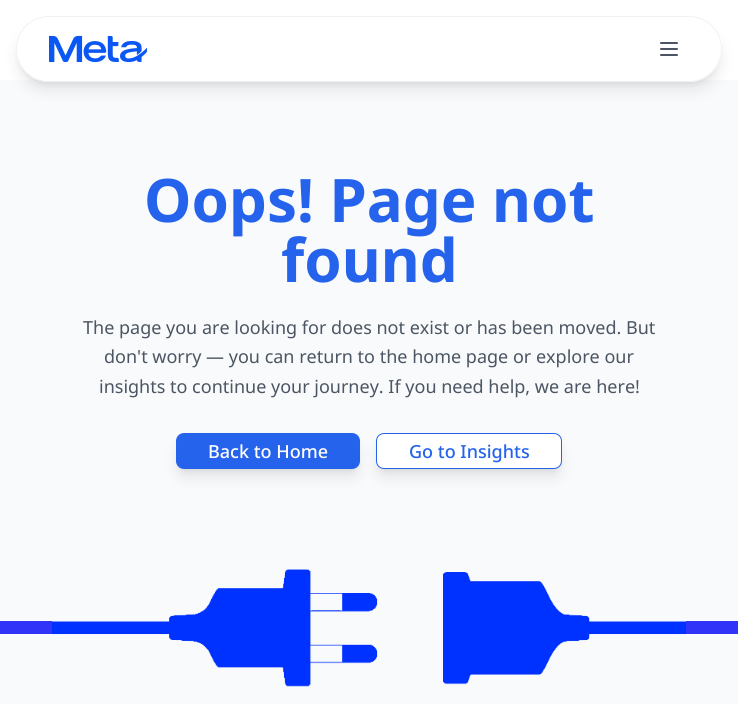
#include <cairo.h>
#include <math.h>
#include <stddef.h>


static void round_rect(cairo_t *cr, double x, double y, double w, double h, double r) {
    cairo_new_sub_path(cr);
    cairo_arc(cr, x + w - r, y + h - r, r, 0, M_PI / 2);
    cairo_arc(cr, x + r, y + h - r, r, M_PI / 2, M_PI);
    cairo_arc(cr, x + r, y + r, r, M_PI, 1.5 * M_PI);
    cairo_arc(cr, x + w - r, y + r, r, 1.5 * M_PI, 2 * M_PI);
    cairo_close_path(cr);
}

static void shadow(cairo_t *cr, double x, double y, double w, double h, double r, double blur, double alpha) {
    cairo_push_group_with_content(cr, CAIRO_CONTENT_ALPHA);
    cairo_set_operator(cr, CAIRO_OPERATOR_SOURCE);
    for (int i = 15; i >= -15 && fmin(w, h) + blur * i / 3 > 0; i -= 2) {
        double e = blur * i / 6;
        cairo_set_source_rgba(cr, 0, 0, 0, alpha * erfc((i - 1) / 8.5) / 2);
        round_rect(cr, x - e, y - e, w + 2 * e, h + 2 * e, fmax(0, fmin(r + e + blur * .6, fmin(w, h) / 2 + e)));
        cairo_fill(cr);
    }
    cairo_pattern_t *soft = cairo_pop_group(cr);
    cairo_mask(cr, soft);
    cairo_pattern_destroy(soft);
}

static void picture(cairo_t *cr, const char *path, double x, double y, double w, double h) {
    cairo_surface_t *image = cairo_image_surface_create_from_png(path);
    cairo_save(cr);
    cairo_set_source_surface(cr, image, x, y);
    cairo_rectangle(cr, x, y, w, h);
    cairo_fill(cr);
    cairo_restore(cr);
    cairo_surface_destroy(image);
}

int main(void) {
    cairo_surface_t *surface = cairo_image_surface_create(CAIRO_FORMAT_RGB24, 738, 704);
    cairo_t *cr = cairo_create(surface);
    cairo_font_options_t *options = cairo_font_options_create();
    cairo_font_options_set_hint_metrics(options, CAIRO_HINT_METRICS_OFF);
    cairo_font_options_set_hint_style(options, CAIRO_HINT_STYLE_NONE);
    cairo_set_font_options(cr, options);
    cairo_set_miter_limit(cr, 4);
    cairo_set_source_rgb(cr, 1, 1, 1);
    cairo_paint(cr);
    cairo_set_source_rgb(cr, 0.976, 0.98, 0.984);
    cairo_rectangle(cr, 0, 80, 738, 624);
    cairo_fill(cr);
    cairo_save(cr);
    cairo_set_fill_rule(cr, CAIRO_FILL_RULE_EVEN_ODD);
    cairo_new_path(cr);
    cairo_move_to(cr, 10, 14);
    cairo_line_to(cr, 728, 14);
    cairo_line_to(cr, 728, 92);
    cairo_line_to(cr, 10, 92);
    cairo_close_path(cr);
    cairo_move_to(cr, 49, 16);
    cairo_line_to(cr, 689, 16);
    cairo_curve_to(cr, 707, 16, 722, 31, 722, 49);
    cairo_curve_to(cr, 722, 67, 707, 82, 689, 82);
    cairo_line_to(cr, 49, 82);
    cairo_curve_to(cr, 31, 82, 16, 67, 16, 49);
    cairo_curve_to(cr, 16, 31, 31, 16, 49, 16);
    cairo_close_path(cr);
    cairo_clip(cr);
    cairo_set_source_rgb(cr, 0, 0, 0);
    shadow(cr, 20, 24, 698, 58, 29, 3, 0.1);
    cairo_restore(cr);
    cairo_save(cr);
    cairo_set_fill_rule(cr, CAIRO_FILL_RULE_EVEN_ODD);
    cairo_new_path(cr);
    cairo_move_to(cr, 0, 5);
    cairo_line_to(cr, 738, 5);
    cairo_line_to(cr, 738, 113);
    cairo_line_to(cr, 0, 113);
    cairo_close_path(cr);
    cairo_move_to(cr, 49, 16);
    cairo_line_to(cr, 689, 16);
    cairo_curve_to(cr, 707, 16, 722, 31, 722, 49);
    cairo_curve_to(cr, 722, 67, 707, 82, 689, 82);
    cairo_line_to(cr, 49, 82);
    cairo_curve_to(cr, 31, 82, 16, 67, 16, 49);
    cairo_curve_to(cr, 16, 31, 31, 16, 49, 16);
    cairo_close_path(cr);
    cairo_clip(cr);
    cairo_set_source_rgb(cr, 0, 0, 0);
    shadow(cr, 19, 29, 700, 60, 30, 7.5, 0.1);
    cairo_restore(cr);
    cairo_set_source_rgba(cr, 1, 1, 1, 0.95);
    round_rect(cr, 16, 16, 706, 66, 33);
    cairo_fill(cr);
    round_rect(cr, 16.5, 16.5, 705, 65, 32.5);
    cairo_set_source_rgba(cr, 0.898, 0.906, 0.922, 0.5);
    cairo_set_line_width(cr, 1);
    cairo_stroke(cr);
    picture(cr, "img1.png", 49, 35, 98, 28);
    picture(cr, "img2.png", 660, 42, 18, 14);
    cairo_select_font_face(cr, "Noto Sans", CAIRO_FONT_SLANT_NORMAL, CAIRO_FONT_WEIGHT_BOLD);
    cairo_set_font_size(cr, 60);
    cairo_set_source_rgb(cr, 0.145, 0.388, 0.922);
    cairo_move_to(cr, 144, 222);
    cairo_show_text(cr, "Oops! Page not");
    cairo_move_to(cr, 281, 282);
    cairo_show_text(cr, "found");
    cairo_select_font_face(cr, "Noto Sans", CAIRO_FONT_SLANT_NORMAL, CAIRO_FONT_WEIGHT_NORMAL);
    cairo_set_font_size(cr, 18);
    cairo_set_source_rgb(cr, 0.294, 0.333, 0.388);
    cairo_move_to(cr, 83, 334);
    cairo_show_text(cr, "The page you are looking for does not exist or has been moved. But");
    cairo_move_to(cr, 104, 363);
    cairo_show_text(cr, "don't worry — you can return to the home page or explore our");
    cairo_move_to(cr, 99, 393);
    cairo_show_text(cr, "insights to continue your journey. If you need help, we are here!");
    cairo_set_source_rgb(cr, 0, 0, 0);
    shadow(cr, 180, 441, 176, 28, 4, 3, 0.1);
    shadow(cr, 179, 446, 178, 30, 5, 7.5, 0.1);
    cairo_set_source_rgb(cr, 0.145, 0.388, 0.922);
    round_rect(cr, 176, 433, 184, 36, 8);
    cairo_fill(cr);
    cairo_select_font_face(cr, "Noto Sans Medium", CAIRO_FONT_SLANT_NORMAL, CAIRO_FONT_WEIGHT_NORMAL);
    cairo_set_source_rgb(cr, 1, 1, 1);
    cairo_move_to(cr, 208, 458);
    cairo_show_text(cr, "Back to Home");
    cairo_set_source_rgb(cr, 0, 0, 0);
    shadow(cr, 380, 441, 178, 28, 4, 3, 0.1);
    shadow(cr, 379, 446, 180, 30, 5, 7.5, 0.1);
    cairo_set_source_rgb(cr, 1, 1, 1);
    round_rect(cr, 376.5, 433.5, 185, 35, 7.5);
    cairo_fill_preserve(cr);
    cairo_set_source_rgb(cr, 0.145, 0.388, 0.922);
    cairo_stroke(cr);
    cairo_move_to(cr, 409, 458);
    cairo_show_text(cr, "Go to Insights");
    cairo_set_source_rgb(cr, 0.192, 0.204, 0.969);
    cairo_rectangle(cr, 0, 621, 738, 13);
    cairo_fill(cr);
    cairo_set_source_rgb(cr, 0.976, 0.98, 0.984);
    cairo_rectangle(cr, 52, 621, 634, 13);
    cairo_fill(cr);
    picture(cr, "img3.png", 52, 569, 634, 118);
    cairo_surface_write_to_png(surface, "page.png");
    cairo_font_options_destroy(options);
    cairo_destroy(cr);
    cairo_surface_destroy(surface);
    return 0;
}
